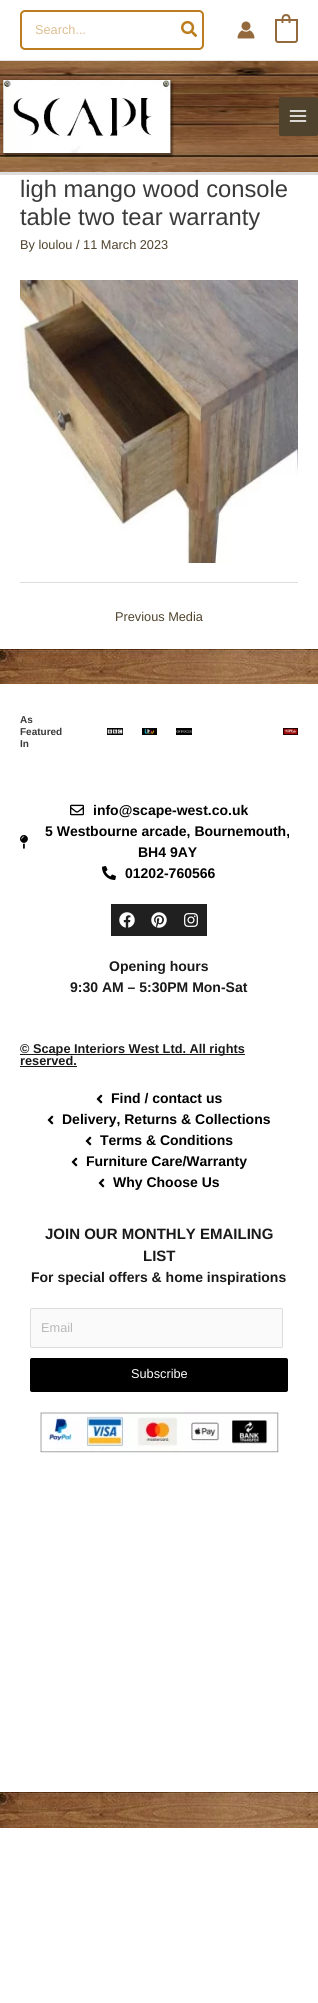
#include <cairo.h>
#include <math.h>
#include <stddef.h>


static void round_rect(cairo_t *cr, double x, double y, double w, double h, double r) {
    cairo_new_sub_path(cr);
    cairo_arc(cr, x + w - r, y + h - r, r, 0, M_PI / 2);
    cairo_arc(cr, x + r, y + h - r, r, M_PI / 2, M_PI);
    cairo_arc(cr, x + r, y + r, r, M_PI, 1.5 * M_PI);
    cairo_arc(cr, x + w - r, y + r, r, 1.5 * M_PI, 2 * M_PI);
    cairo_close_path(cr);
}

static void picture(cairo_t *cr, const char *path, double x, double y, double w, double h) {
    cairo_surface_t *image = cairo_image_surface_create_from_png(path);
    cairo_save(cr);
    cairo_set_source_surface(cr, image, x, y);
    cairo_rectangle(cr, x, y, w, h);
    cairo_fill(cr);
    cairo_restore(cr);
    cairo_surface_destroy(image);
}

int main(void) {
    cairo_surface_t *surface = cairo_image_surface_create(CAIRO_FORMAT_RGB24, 318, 2003);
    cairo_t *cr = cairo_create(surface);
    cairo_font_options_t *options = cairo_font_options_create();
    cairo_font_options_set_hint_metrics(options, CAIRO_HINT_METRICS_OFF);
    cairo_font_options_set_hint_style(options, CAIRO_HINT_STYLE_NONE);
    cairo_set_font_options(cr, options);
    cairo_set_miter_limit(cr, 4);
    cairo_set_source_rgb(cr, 1, 1, 1);
    cairo_paint(cr);
    cairo_set_source_rgb(cr, 0.898, 0.898, 0.898);
    cairo_rectangle(cr, 0, 60, 318, 1);
    cairo_fill(cr);
    round_rect(cr, 21, 11, 182, 38, 4);
    cairo_set_source_rgb(cr, 0.737, 0.49, 0.122);
    cairo_stroke(cr);
    cairo_select_font_face(cr, "Liberation Sans", CAIRO_FONT_SLANT_NORMAL, CAIRO_FONT_WEIGHT_NORMAL);
    cairo_set_font_size(cr, 12.75);
    cairo_set_source_rgb(cr, 0.871, 0.745, 0.561);
    cairo_move_to(cr, 35, 34);
    cairo_show_text(cr, "Search...");
    picture(cr, "img1.png", 181, 20, 16, 17);
    picture(cr, "img2.png", 237, 21, 18, 18);
    cairo_new_path(cr);
    cairo_move_to(cr, 276, 20);
    cairo_line_to(cr, 297, 20);
    cairo_line_to(cr, 297, 40);
    cairo_curve_to(cr, 297, 41, 296, 42, 295, 42);
    cairo_line_to(cr, 278, 42);
    cairo_curve_to(cr, 277, 42, 276, 41, 276, 40);
    cairo_close_path(cr);
    cairo_set_source_rgb(cr, 0.58, 0.412, 0.239);
    cairo_stroke(cr);
    cairo_set_fill_rule(cr, CAIRO_FILL_RULE_EVEN_ODD);
    cairo_new_path(cr);
    cairo_move_to(cr, 286, 14);
    cairo_curve_to(cr, 291.5, 14, 290.5, 19.5, 290.5, 23);
    cairo_line_to(cr, 281.5, 23);
    cairo_curve_to(cr, 281.5, 19.5, 281, 14, 286, 14);
    cairo_close_path(cr);
    cairo_move_to(cr, 286, 16);
    cairo_curve_to(cr, 289.5, 16, 288.5, 21, 288.5, 23);
    cairo_line_to(cr, 283.5, 23);
    cairo_curve_to(cr, 283.5, 21, 282.5, 16, 286, 16);
    cairo_close_path(cr);
    cairo_fill(cr);
    picture(cr, "img3.png", 0, 61, 318, 111);
    cairo_set_source_rgb(cr, 0.867, 0.867, 0.867);
    cairo_rectangle(cr, 0, 172, 318, 3);
    cairo_fill(cr);
    picture(cr, "img4.png", 2, 79, 172, 79);
    cairo_set_source_rgb(cr, 0.31, 0.263, 0.176);
    round_rect(cr, 279, 97, 39, 39, 2);
    cairo_fill(cr);
    picture(cr, "img5.png", 289, 110, 18, 12);
    cairo_set_font_size(cr, 23.75);
    cairo_set_source_rgb(cr, 0.227, 0.227, 0.227);
    cairo_move_to(cr, 20, 197);
    cairo_show_text(cr, "ligh mango wood console");
    cairo_move_to(cr, 20, 225);
    cairo_show_text(cr, "table two tear warranty");
    cairo_set_font_size(cr, 12.75);
    cairo_set_source_rgb(cr, 0.31, 0.263, 0.176);
    cairo_move_to(cr, 20, 249);
    cairo_show_text(cr, "By loulou / 11 March 2023");
    picture(cr, "img6.png", 20, 280, 278, 283);
    cairo_set_source_rgb(cr, 0.867, 0.867, 0.867);
    cairo_rectangle(cr, 20, 582, 278, 1);
    cairo_fill(cr);
    cairo_set_source_rgb(cr, 0.31, 0.263, 0.176);
    cairo_move_to(cr, 115, 621);
    cairo_show_text(cr, "Previous Media");
    picture(cr, "img7.png", 0, 649, 318, 35);
    cairo_select_font_face(cr, "Liberation Sans", CAIRO_FONT_SLANT_NORMAL, CAIRO_FONT_WEIGHT_BOLD);
    cairo_set_font_size(cr, 10);
    cairo_set_source_rgb(cr, 0.227, 0.227, 0.227);
    cairo_move_to(cr, 20, 723);
    cairo_show_text(cr, "As");
    cairo_move_to(cr, 20, 735);
    cairo_show_text(cr, "Featured");
    cairo_move_to(cr, 20, 747);
    cairo_show_text(cr, "In");
    picture(cr, "img8.png", 107, 728, 16, 7);
    picture(cr, "img9.png", 142, 728, 15, 7);
    picture(cr, "img10.png", 176, 728, 16, 7);
    picture(cr, "img11.png", 283, 728, 15, 7);
    picture(cr, "img12.png", 70, 804, 14, 12);
    cairo_set_font_size(cr, 14);
    cairo_set_source_rgb(cr, 0, 0, 0);
    cairo_move_to(cr, 93, 815);
    cairo_show_text(cr, "info@scape-west.co.uk");
    picture(cr, "img13.png", 20, 835, 8, 14);
    cairo_move_to(cr, 45, 836);
    cairo_show_text(cr, "5 Westbourne arcade, Bournemouth,");
    cairo_move_to(cr, 138, 857);
    cairo_show_text(cr, "BH4 9AY");
    picture(cr, "img14.png", 102, 866, 14, 14);
    cairo_move_to(cr, 125, 878);
    cairo_show_text(cr, "01202-760566");
    cairo_set_source_rgb(cr, 0.125, 0.125, 0.125);
    cairo_rectangle(cr, 111, 904, 96, 32);
    cairo_fill(cr);
    picture(cr, "img15.png", 119, 912, 16, 16);
    picture(cr, "img16.png", 151, 912, 16, 16);
    picture(cr, "img17.png", 184, 913, 14, 14);
    cairo_set_source_rgb(cr, 0.098, 0.098, 0.098);
    cairo_move_to(cr, 109, 971);
    cairo_show_text(cr, "Opening hours");
    cairo_move_to(cr, 70, 992);
    cairo_show_text(cr, "9:30 AM – 5:30PM Mon-Sat");
    cairo_rectangle(cr, 20, 1054, 225, 1);
    cairo_fill(cr);
    cairo_set_font_size(cr, 12.75);
    cairo_move_to(cr, 20, 1053);
    cairo_show_text(cr, "© Scape Interiors West Ltd. All rights");
    cairo_move_to(cr, 20, 1065);
    cairo_show_text(cr, "reserved.");
    cairo_rectangle(cr, 20, 1066, 57, 1);
    cairo_fill(cr);
    picture(cr, "img18.png", 96, 1094, 7, 10);
    cairo_set_font_size(cr, 14);
    cairo_set_source_rgb(cr, 0, 0, 0);
    cairo_move_to(cr, 111, 1103);
    cairo_show_text(cr, "Find / contact us");
    picture(cr, "img18.png", 47, 1115, 7, 10);
    cairo_move_to(cr, 62, 1124);
    cairo_show_text(cr, "Delivery, Returns & Collections");
    picture(cr, "img18.png", 85, 1136, 7, 10);
    cairo_move_to(cr, 100, 1145);
    cairo_show_text(cr, "Terms & Conditions");
    picture(cr, "img18.png", 71, 1157, 7, 10);
    cairo_move_to(cr, 86, 1166);
    cairo_show_text(cr, "Furniture Care/Warranty");
    picture(cr, "img18.png", 98, 1178, 7, 10);
    cairo_move_to(cr, 113, 1187);
    cairo_show_text(cr, "Why Choose Us");
    cairo_set_font_size(cr, 15);
    cairo_set_source_rgb(cr, 0.098, 0.098, 0.098);
    cairo_move_to(cr, 45, 1239);
    cairo_show_text(cr, "JOIN OUR MONTHLY EMAILING");
    cairo_move_to(cr, 143, 1261);
    cairo_show_text(cr, "LIST");
    cairo_set_font_size(cr, 14);
    cairo_move_to(cr, 31, 1282);
    cairo_show_text(cr, "For special offers & home inspirations");
    cairo_set_source_rgb(cr, 0.98, 0.98, 0.98);
    round_rect(cr, 30.5, 1308.5, 252, 39, 1.5);
    cairo_fill_preserve(cr);
    cairo_set_source_rgb(cr, 0.867, 0.867, 0.867);
    cairo_set_line_width(cr, 1);
    cairo_stroke(cr);
    cairo_select_font_face(cr, "Liberation Sans", CAIRO_FONT_SLANT_NORMAL, CAIRO_FONT_WEIGHT_NORMAL);
    cairo_set_font_size(cr, 12.75);
    cairo_set_source_rgb(cr, 0.722, 0.722, 0.722);
    cairo_move_to(cr, 41, 1332);
    cairo_show_text(cr, "Email");
    cairo_set_source_rgb(cr, 0, 0, 0);
    round_rect(cr, 30, 1358, 258, 34, 2);
    cairo_fill(cr);
    cairo_set_source_rgb(cr, 1, 1, 1);
    cairo_move_to(cr, 131, 1378);
    cairo_show_text(cr, "Subscribe");
    picture(cr, "img19.png", 40, 1412, 239, 41);
    picture(cr, "img20.png", 0, 1792, 318, 36);
    cairo_surface_write_to_png(surface, "page.png");
    cairo_font_options_destroy(options);
    cairo_destroy(cr);
    cairo_surface_destroy(surface);
    return 0;
}
